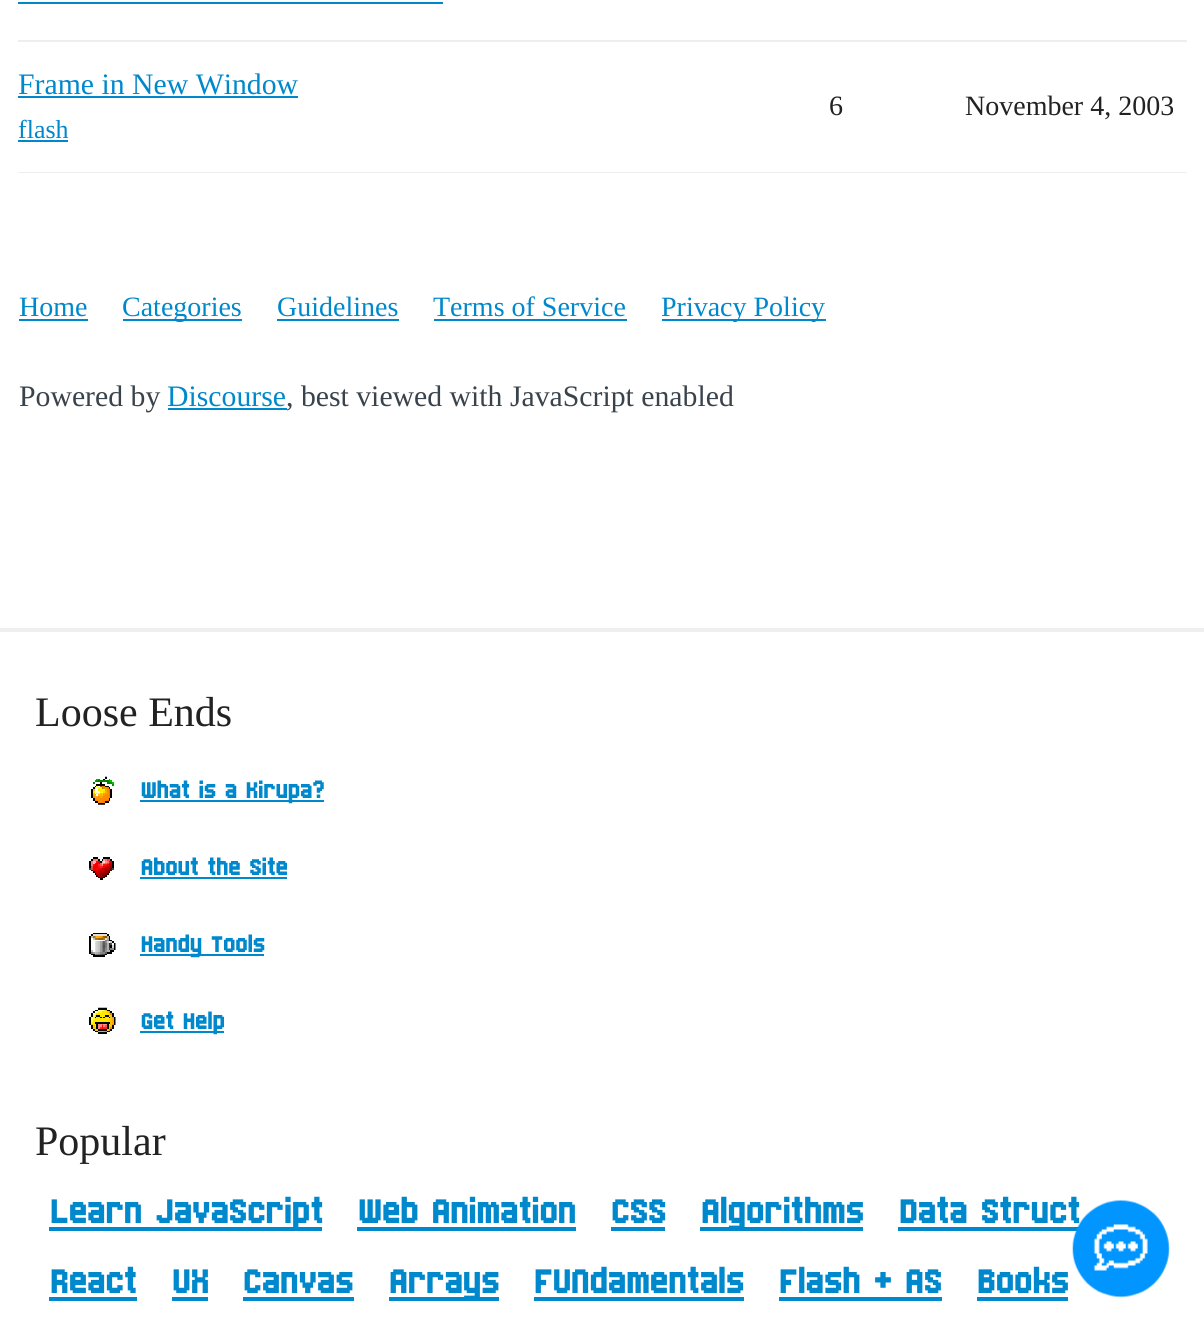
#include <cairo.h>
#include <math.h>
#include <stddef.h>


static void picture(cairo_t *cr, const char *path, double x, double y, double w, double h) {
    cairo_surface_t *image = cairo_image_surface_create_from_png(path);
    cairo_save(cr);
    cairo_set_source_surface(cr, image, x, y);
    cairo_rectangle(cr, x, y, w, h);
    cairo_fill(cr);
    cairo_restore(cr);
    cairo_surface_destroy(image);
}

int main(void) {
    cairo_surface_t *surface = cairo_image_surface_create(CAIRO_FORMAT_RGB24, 1204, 1331);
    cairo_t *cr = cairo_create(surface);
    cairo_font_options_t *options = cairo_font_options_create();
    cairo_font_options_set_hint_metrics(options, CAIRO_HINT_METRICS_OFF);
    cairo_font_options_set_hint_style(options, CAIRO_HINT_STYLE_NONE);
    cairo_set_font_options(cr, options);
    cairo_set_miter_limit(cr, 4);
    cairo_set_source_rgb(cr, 1, 1, 1);
    cairo_paint(cr);
    cairo_set_source_rgb(cr, 0, 0.533, 0.8);
    cairo_rectangle(cr, 18, 2, 425, 2);
    cairo_fill(cr);
    cairo_set_source_rgb(cr, 0.933, 0.933, 0.933);
    cairo_rectangle(cr, 18, 40, 1169, 2);
    cairo_fill(cr);
    cairo_select_font_face(cr, "Liberation Serif", CAIRO_FONT_SLANT_NORMAL, CAIRO_FONT_WEIGHT_NORMAL);
    cairo_set_font_size(cr, 29.75);
    cairo_set_source_rgb(cr, 0, 0.533, 0.8);
    cairo_move_to(cr, 18, 94);
    cairo_show_text(cr, "Frame in New Window");
    cairo_rectangle(cr, 18, 96, 280, 2);
    cairo_fill(cr);
    cairo_set_font_size(cr, 26);
    cairo_move_to(cr, 18, 138);
    cairo_show_text(cr, "flash");
    cairo_rectangle(cr, 18, 140, 50, 2);
    cairo_fill(cr);
    cairo_set_font_size(cr, 28);
    cairo_set_source_rgb(cr, 0.133, 0.133, 0.133);
    cairo_move_to(cr, 829, 115);
    cairo_show_text(cr, "6");
    cairo_set_source_rgb(cr, 0.933, 0.933, 0.933);
    cairo_rectangle(cr, 18, 172, 1169, 1);
    cairo_fill(cr);
    cairo_set_source_rgb(cr, 0.133, 0.133, 0.133);
    cairo_move_to(cr, 965, 115);
    cairo_show_text(cr, "November 4, 2003");
    cairo_set_source_rgb(cr, 0, 0.533, 0.8);
    cairo_move_to(cr, 19, 316);
    cairo_show_text(cr, "Home");
    cairo_rectangle(cr, 19, 319, 69, 2);
    cairo_fill(cr);
    cairo_rectangle(cr, 123, 319, 119, 2);
    cairo_fill(cr);
    cairo_move_to(cr, 122, 316);
    cairo_show_text(cr, "Categories");
    cairo_move_to(cr, 277, 316);
    cairo_show_text(cr, "Guidelines");
    cairo_rectangle(cr, 277, 319, 122, 2);
    cairo_fill(cr);
    cairo_move_to(cr, 433, 316);
    cairo_show_text(cr, "Terms of Service");
    cairo_rectangle(cr, 434, 319, 193, 2);
    cairo_fill(cr);
    cairo_rectangle(cr, 662, 319, 164, 2);
    cairo_fill(cr);
    cairo_move_to(cr, 661, 316);
    cairo_show_text(cr, "Privacy Policy");
    cairo_set_font_size(cr, 29.75);
    cairo_set_source_rgb(cr, 0.224, 0.263, 0.298);
    cairo_move_to(cr, 19, 406);
    cairo_show_text(cr, "Powered by");
    cairo_set_source_rgb(cr, 0, 0.533, 0.8);
    cairo_move_to(cr, 167, 406);
    cairo_show_text(cr, "Discourse");
    cairo_rectangle(cr, 168, 408, 119, 2);
    cairo_fill(cr);
    cairo_set_source_rgb(cr, 0.224, 0.263, 0.298);
    cairo_move_to(cr, 286, 406);
    cairo_show_text(cr, ", best viewed with JavaScript enabled");
    cairo_set_source_rgb(cr, 0.933, 0.933, 0.933);
    cairo_rectangle(cr, 0, 628, 1204, 4);
    cairo_fill(cr);
    cairo_set_font_size(cr, 42);
    cairo_set_source_rgb(cr, 0.133, 0.133, 0.133);
    cairo_move_to(cr, 35, 726);
    cairo_show_text(cr, "Loose Ends");
    picture(cr, "img1.png", 91, 776, 23, 29);
    cairo_set_source_rgb(cr, 0, 0.533, 0.8);
    cairo_rectangle(cr, 140, 800, 184, 2);
    cairo_fill(cr);
    cairo_select_font_face(cr, "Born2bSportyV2 Medium", CAIRO_FONT_SLANT_NORMAL, CAIRO_FONT_WEIGHT_NORMAL);
    cairo_set_font_size(cr, 28);
    cairo_move_to(cr, 140, 798);
    cairo_show_text(cr, "What is a Kirupa?");
    picture(cr, "img2.png", 89, 857, 25, 23);
    cairo_move_to(cr, 140, 875);
    cairo_show_text(cr, "About the Site");
    cairo_rectangle(cr, 140, 877, 147, 2);
    cairo_fill(cr);
    picture(cr, "img3.png", 89, 933, 27, 24);
    cairo_rectangle(cr, 140, 954, 124, 2);
    cairo_fill(cr);
    cairo_move_to(cr, 140, 952);
    cairo_show_text(cr, "Handy Tools");
    picture(cr, "img4.png", 89, 1007, 27, 27);
    cairo_rectangle(cr, 140, 1031, 84, 2);
    cairo_fill(cr);
    cairo_move_to(cr, 140, 1029);
    cairo_show_text(cr, "Get Help");
    cairo_select_font_face(cr, "Liberation Serif", CAIRO_FONT_SLANT_NORMAL, CAIRO_FONT_WEIGHT_NORMAL);
    cairo_set_font_size(cr, 42);
    cairo_set_source_rgb(cr, 0.133, 0.133, 0.133);
    cairo_move_to(cr, 35, 1155);
    cairo_show_text(cr, "Popular");
    cairo_set_source_rgb(cr, 0, 0.533, 0.8);
    cairo_rectangle(cr, 49, 1227, 273, 4);
    cairo_fill(cr);
    cairo_select_font_face(cr, "Born2bSportyV2 Medium", CAIRO_FONT_SLANT_NORMAL, CAIRO_FONT_WEIGHT_NORMAL);
    cairo_move_to(cr, 49, 1223);
    cairo_show_text(cr, "Learn JavaScript");
    cairo_move_to(cr, 357, 1223);
    cairo_show_text(cr, "Web Animation");
    cairo_rectangle(cr, 357, 1227, 219, 4);
    cairo_fill(cr);
    cairo_move_to(cr, 610, 1223);
    cairo_show_text(cr, "CSS");
    cairo_rectangle(cr, 611, 1227, 54, 4);
    cairo_fill(cr);
    cairo_rectangle(cr, 700, 1227, 163, 4);
    cairo_fill(cr);
    cairo_move_to(cr, 700, 1223);
    cairo_show_text(cr, "Algorithms");
    cairo_move_to(cr, 898, 1223);
    cairo_show_text(cr, "Data Struct");
    cairo_rectangle(cr, 898, 1227, 181, 4);
    cairo_fill(cr);
    cairo_move_to(cr, 49, 1293);
    cairo_show_text(cr, "React");
    cairo_rectangle(cr, 49, 1297, 88, 4);
    cairo_fill(cr);
    cairo_move_to(cr, 171, 1293);
    cairo_show_text(cr, "UX");
    cairo_rectangle(cr, 172, 1297, 36, 4);
    cairo_fill(cr);
    cairo_move_to(cr, 242, 1293);
    cairo_show_text(cr, "Canvas");
    cairo_rectangle(cr, 243, 1297, 111, 4);
    cairo_fill(cr);
    cairo_rectangle(cr, 389, 1297, 110, 4);
    cairo_fill(cr);
    cairo_move_to(cr, 388, 1293);
    cairo_show_text(cr, "Arrays");
    cairo_move_to(cr, 533, 1293);
    cairo_show_text(cr, "FUNdamentals");
    cairo_rectangle(cr, 534, 1297, 210, 4);
    cairo_fill(cr);
    cairo_move_to(cr, 778, 1293);
    cairo_show_text(cr, "Flash + AS");
    cairo_rectangle(cr, 779, 1297, 163, 4);
    cairo_fill(cr);
    cairo_move_to(cr, 976, 1293);
    cairo_show_text(cr, "Books");
    cairo_rectangle(cr, 977, 1297, 91, 4);
    cairo_fill(cr);
    picture(cr, "img5.png", 1072, 1200, 98, 98);
    cairo_surface_write_to_png(surface, "page.png");
    cairo_font_options_destroy(options);
    cairo_destroy(cr);
    cairo_surface_destroy(surface);
    return 0;
}
